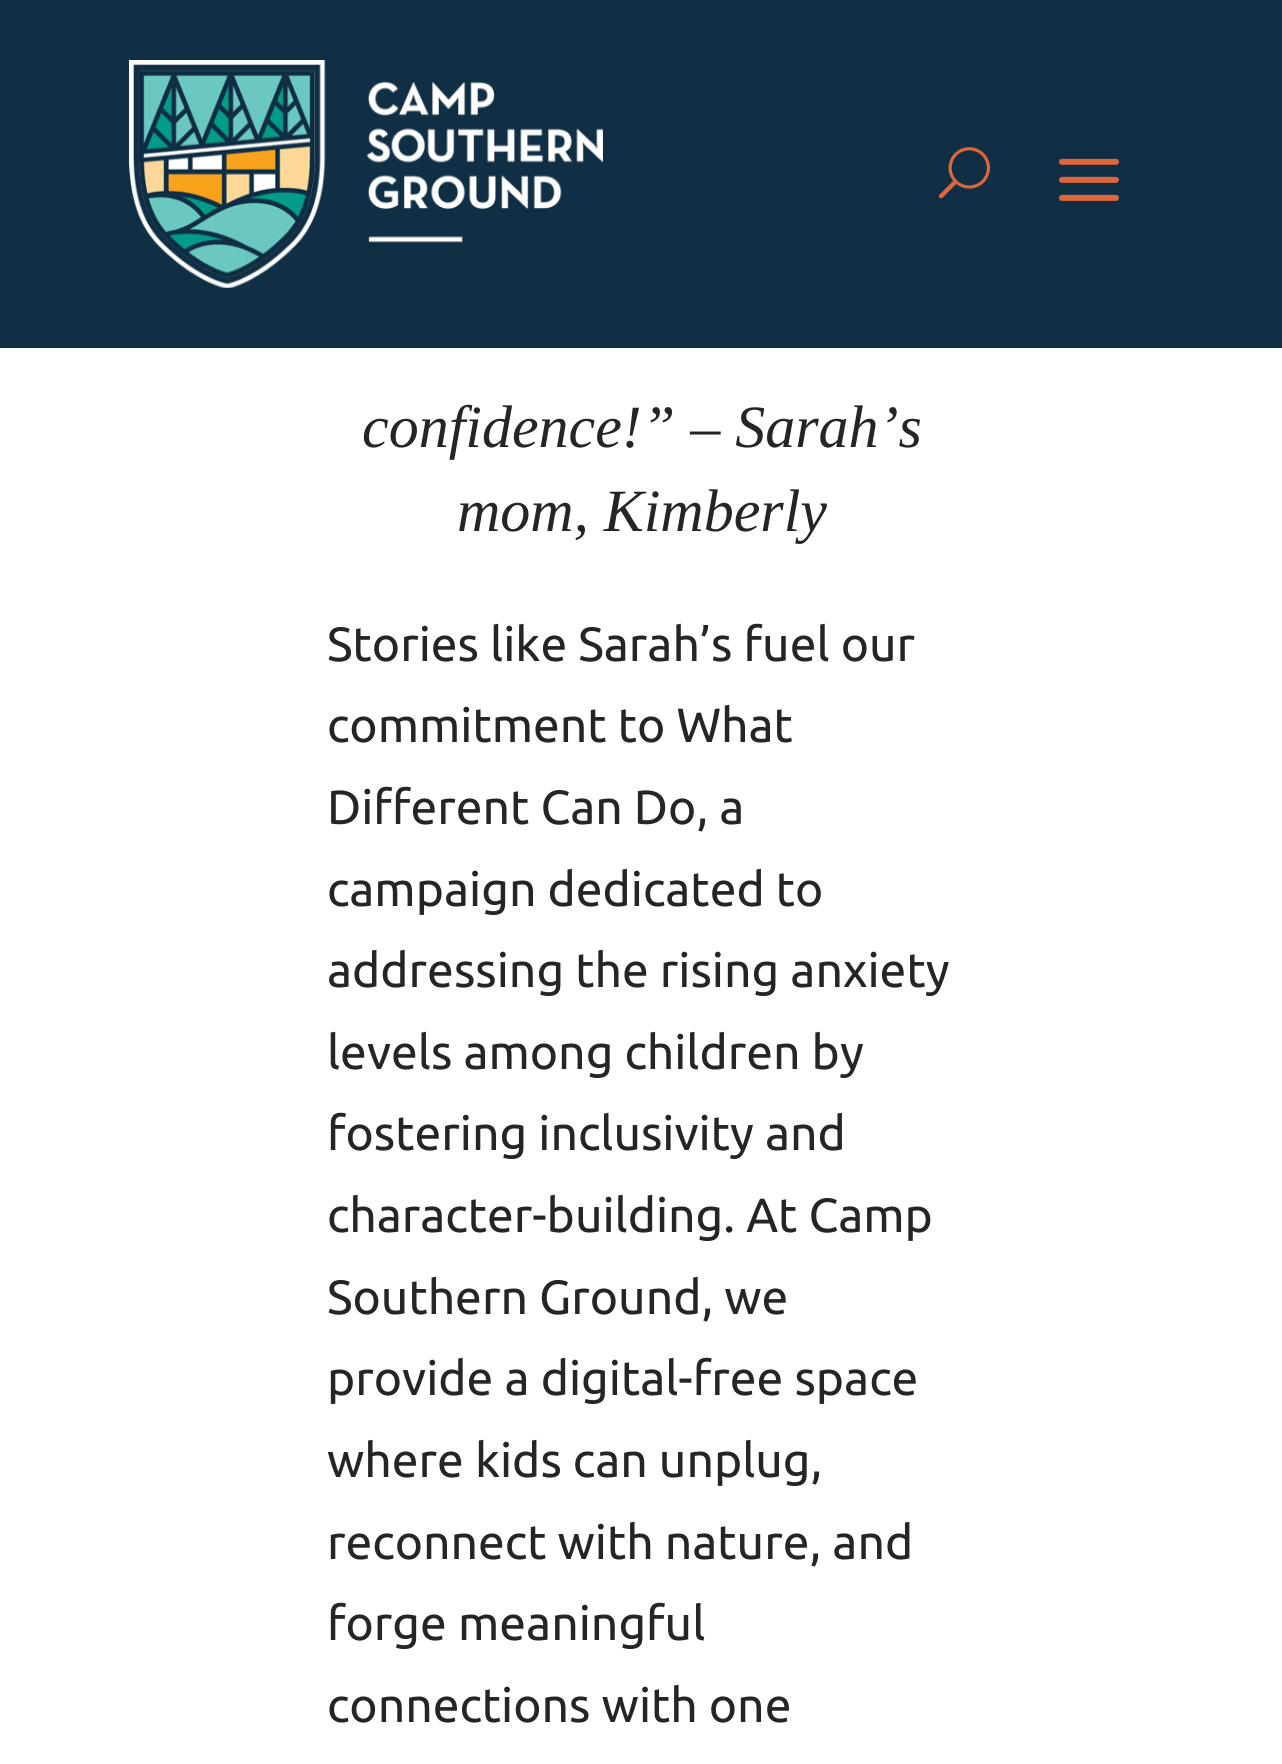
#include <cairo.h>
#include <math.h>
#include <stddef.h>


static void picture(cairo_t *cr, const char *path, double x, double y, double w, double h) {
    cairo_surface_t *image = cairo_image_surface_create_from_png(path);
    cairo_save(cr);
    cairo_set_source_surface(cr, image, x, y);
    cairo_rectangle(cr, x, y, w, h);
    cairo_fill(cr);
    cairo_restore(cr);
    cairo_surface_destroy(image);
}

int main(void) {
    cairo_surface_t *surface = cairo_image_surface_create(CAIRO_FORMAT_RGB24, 1282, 1764);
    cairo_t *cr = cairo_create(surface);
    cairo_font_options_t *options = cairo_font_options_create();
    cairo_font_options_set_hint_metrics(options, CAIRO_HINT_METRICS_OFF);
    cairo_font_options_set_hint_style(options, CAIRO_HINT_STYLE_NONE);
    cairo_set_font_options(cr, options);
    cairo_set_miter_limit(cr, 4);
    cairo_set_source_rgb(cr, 1, 1, 1);
    cairo_paint(cr);
    cairo_set_source_rgb(cr, 0.063, 0.184, 0.267);
    cairo_rectangle(cr, 0, 0, 1282, 348);
    cairo_fill(cr);
    picture(cr, "img1.png", 129, 60, 474, 228);
    picture(cr, "img2.png", 938, 147, 52, 52);
    picture(cr, "img3.png", 1059, 158, 60, 43);
    cairo_select_font_face(cr, "Liberation Serif", CAIRO_FONT_SLANT_ITALIC, CAIRO_FONT_WEIGHT_NORMAL);
    cairo_set_font_size(cr, 60);
    cairo_set_source_rgb(cr, 0.137, 0.145, 0.149);
    cairo_move_to(cr, 362, 447);
    cairo_show_text(cr, "confidence!” – Sarah’s");
    cairo_move_to(cr, 457, 531);
    cairo_show_text(cr, "mom, Kimberly");
    cairo_select_font_face(cr, "Ubuntu", CAIRO_FONT_SLANT_NORMAL, CAIRO_FONT_WEIGHT_NORMAL);
    cairo_set_font_size(cr, 48);
    cairo_move_to(cr, 327, 661);
    cairo_show_text(cr, "Stories like Sarah’s fuel our");
    cairo_move_to(cr, 327, 742);
    cairo_show_text(cr, "commitment to What");
    cairo_move_to(cr, 327, 824);
    cairo_show_text(cr, "Different Can Do, a");
    cairo_move_to(cr, 327, 906);
    cairo_show_text(cr, "campaign dedicated to");
    cairo_move_to(cr, 327, 987);
    cairo_show_text(cr, "addressing the rising anxiety");
    cairo_move_to(cr, 327, 1069);
    cairo_show_text(cr, "levels among children by");
    cairo_move_to(cr, 327, 1150);
    cairo_show_text(cr, "fostering inclusivity and");
    cairo_move_to(cr, 327, 1232);
    cairo_show_text(cr, "character-building. At Camp");
    cairo_move_to(cr, 327, 1314);
    cairo_show_text(cr, "Southern Ground, we");
    cairo_move_to(cr, 327, 1395);
    cairo_show_text(cr, "provide a digital-free space");
    cairo_move_to(cr, 327, 1477);
    cairo_show_text(cr, "where kids can unplug,");
    cairo_move_to(cr, 327, 1559);
    cairo_show_text(cr, "reconnect with nature, and");
    cairo_move_to(cr, 327, 1640);
    cairo_show_text(cr, "forge meaningful");
    cairo_move_to(cr, 327, 1722);
    cairo_show_text(cr, "connections with one");
    cairo_surface_write_to_png(surface, "page.png");
    cairo_font_options_destroy(options);
    cairo_destroy(cr);
    cairo_surface_destroy(surface);
    return 0;
}
